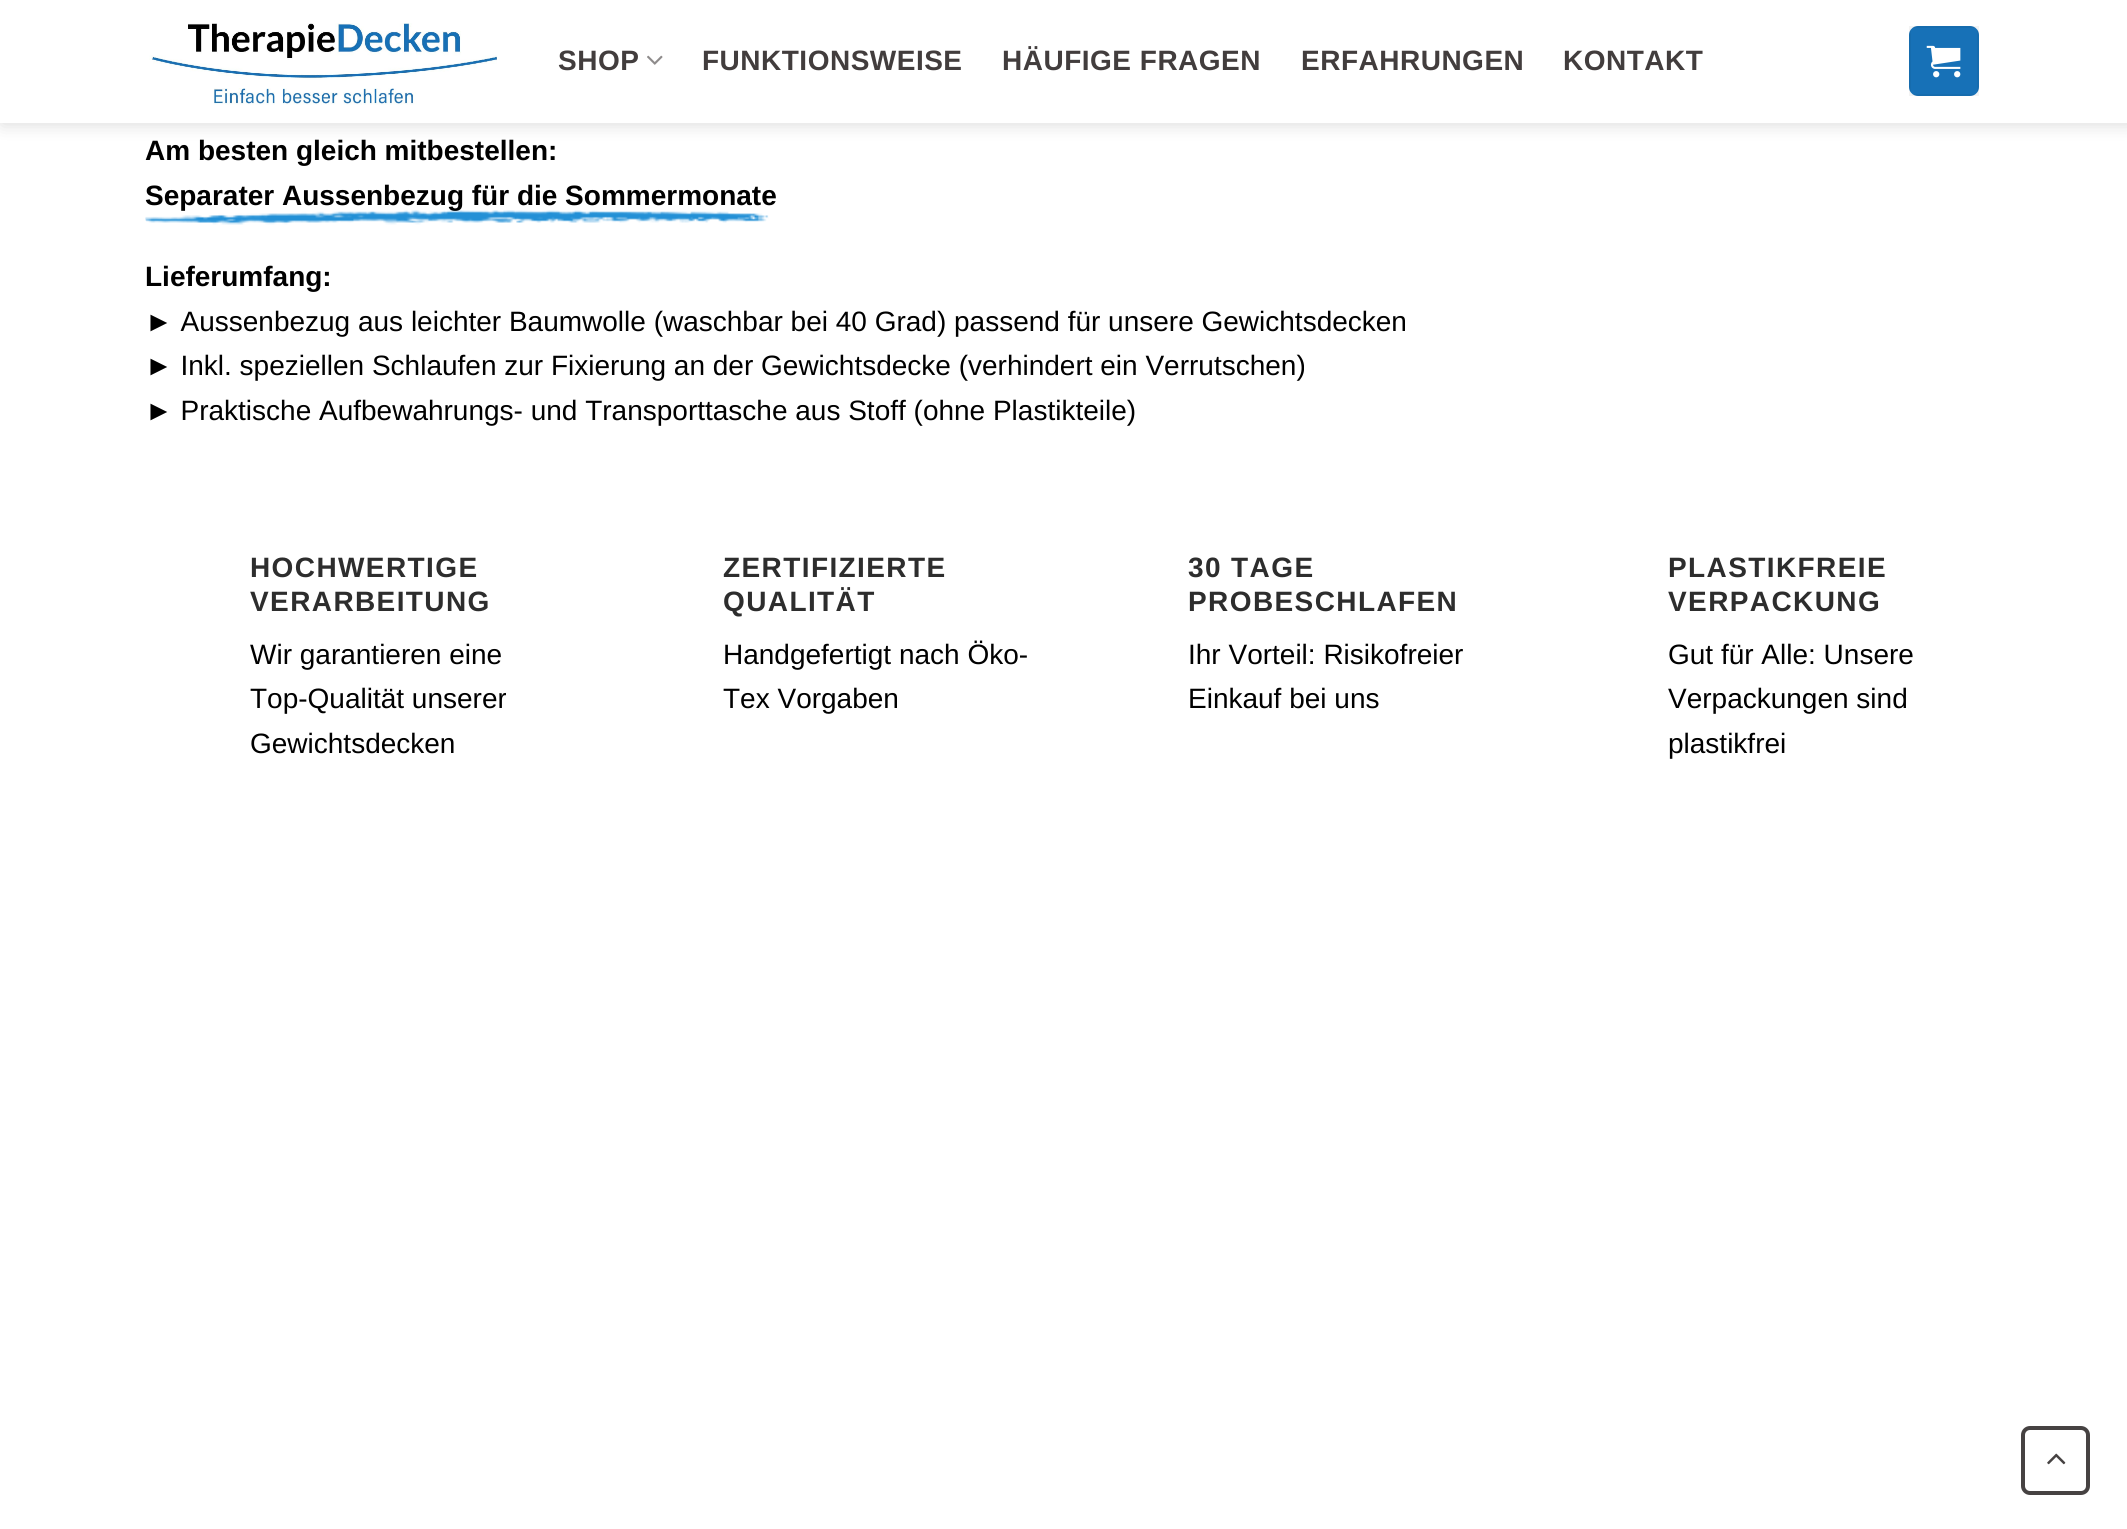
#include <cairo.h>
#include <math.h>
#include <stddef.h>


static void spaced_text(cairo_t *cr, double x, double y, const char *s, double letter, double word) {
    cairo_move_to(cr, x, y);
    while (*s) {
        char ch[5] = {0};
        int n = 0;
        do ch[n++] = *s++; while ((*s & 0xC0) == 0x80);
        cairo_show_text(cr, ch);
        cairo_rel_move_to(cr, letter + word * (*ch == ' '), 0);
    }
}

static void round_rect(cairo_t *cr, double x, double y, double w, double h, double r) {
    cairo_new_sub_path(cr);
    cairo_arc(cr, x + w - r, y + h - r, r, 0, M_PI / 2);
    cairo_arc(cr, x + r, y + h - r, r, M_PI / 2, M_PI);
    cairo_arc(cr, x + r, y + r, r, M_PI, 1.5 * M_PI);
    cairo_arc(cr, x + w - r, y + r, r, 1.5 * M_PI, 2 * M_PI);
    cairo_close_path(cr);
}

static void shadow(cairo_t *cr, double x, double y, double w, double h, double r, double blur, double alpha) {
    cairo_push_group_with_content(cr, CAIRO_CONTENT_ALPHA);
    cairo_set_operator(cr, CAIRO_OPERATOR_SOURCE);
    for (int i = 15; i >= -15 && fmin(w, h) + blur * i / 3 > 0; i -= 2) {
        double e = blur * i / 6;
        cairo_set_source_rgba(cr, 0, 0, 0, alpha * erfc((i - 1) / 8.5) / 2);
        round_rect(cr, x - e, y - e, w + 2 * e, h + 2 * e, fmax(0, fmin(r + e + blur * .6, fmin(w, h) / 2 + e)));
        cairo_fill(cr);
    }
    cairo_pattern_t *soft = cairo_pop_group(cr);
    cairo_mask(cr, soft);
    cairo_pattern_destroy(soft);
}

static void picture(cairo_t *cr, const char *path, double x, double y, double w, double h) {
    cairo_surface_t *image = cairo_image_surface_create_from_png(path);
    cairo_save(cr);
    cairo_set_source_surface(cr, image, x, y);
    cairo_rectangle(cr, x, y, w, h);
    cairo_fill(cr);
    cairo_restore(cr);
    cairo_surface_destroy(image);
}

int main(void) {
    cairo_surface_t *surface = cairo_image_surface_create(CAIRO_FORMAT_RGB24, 2127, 1529);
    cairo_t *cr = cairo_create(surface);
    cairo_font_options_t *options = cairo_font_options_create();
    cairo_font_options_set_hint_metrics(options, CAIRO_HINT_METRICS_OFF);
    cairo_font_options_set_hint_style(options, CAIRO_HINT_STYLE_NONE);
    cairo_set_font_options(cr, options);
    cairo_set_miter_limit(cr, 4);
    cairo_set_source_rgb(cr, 1, 1, 1);
    cairo_paint(cr);
    cairo_set_source_rgb(cr, 0, 0, 0);
    shadow(cr, 2, 2, 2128, 122, 0, 9, 0.15);
    cairo_set_source_rgb(cr, 1, 1, 1);
    cairo_rectangle(cr, 0, 0, 2127, 123);
    cairo_fill(cr);
    picture(cr, "img1.png", 149, 23, 348, 82);
    cairo_select_font_face(cr, "Liberation Sans", CAIRO_FONT_SLANT_NORMAL, CAIRO_FONT_WEIGHT_BOLD);
    cairo_set_font_size(cr, 28);
    cairo_set_source_rgb(cr, 0.259, 0.239, 0.239);
    spaced_text(cr, 558, 70, "SHOP", 0.5, 0);
    picture(cr, "img2.png", 647, 55, 16, 10);
    spaced_text(cr, 702, 70, "FUNKTIONSWEISE", 0.5, 0);
    spaced_text(cr, 1002, 70, "HÄUFIGE FRAGEN", 0.5, 0);
    spaced_text(cr, 1301, 70, "ERFAHRUNGEN", 0.5, 0);
    spaced_text(cr, 1563, 70, "KONTAKT", 0.5, 0);
    cairo_set_source_rgb(cr, 0.09, 0.443, 0.718);
    round_rect(cr, 1909, 26, 70, 70, 9);
    cairo_fill(cr);
    cairo_rectangle(cr, 1910, 27, 68, 68);
    cairo_set_source_rgba(cr, 0, 0, 0, 0.05);
    cairo_stroke(cr);
    picture(cr, "img3.png", 1926, 45, 35, 33);
    cairo_set_source_rgb(cr, 0, 0, 0);
    cairo_move_to(cr, 145, 160);
    cairo_show_text(cr, "Am besten gleich mitbestellen:");
    cairo_move_to(cr, 145, 205);
    cairo_show_text(cr, "Separater Aussenbezug für die Sommermonate");
    picture(cr, "img4.png", 145, 210, 624, 15);
    cairo_move_to(cr, 145, 286);
    cairo_show_text(cr, "Lieferumfang:");
    cairo_select_font_face(cr, "Liberation Sans", CAIRO_FONT_SLANT_NORMAL, CAIRO_FONT_WEIGHT_NORMAL);
    cairo_move_to(cr, 145, 331);
    cairo_show_text(cr, "► Aussenbezug aus leichter Baumwolle (waschbar bei 40 Grad) passend für unsere Gewichtsdecken");
    cairo_move_to(cr, 145, 375);
    cairo_show_text(cr, "► Inkl. speziellen Schlaufen zur Fixierung an der Gewichtsdecke (verhindert ein Verrutschen)");
    cairo_move_to(cr, 145, 420);
    cairo_show_text(cr, "► Praktische Aufbewahrungs- und Transporttasche aus Stoff (ohne Plastikteile)");
    cairo_select_font_face(cr, "Liberation Sans", CAIRO_FONT_SLANT_NORMAL, CAIRO_FONT_WEIGHT_BOLD);
    cairo_set_source_rgb(cr, 0.176, 0.176, 0.176);
    spaced_text(cr, 250, 577, "HOCHWERTIGE", 1.4, 0);
    spaced_text(cr, 250, 611, "VERARBEITUNG", 1.4, 0);
    cairo_select_font_face(cr, "Liberation Sans", CAIRO_FONT_SLANT_NORMAL, CAIRO_FONT_WEIGHT_NORMAL);
    cairo_set_source_rgb(cr, 0, 0, 0);
    cairo_move_to(cr, 250, 664);
    cairo_show_text(cr, "Wir garantieren eine");
    cairo_move_to(cr, 250, 708);
    cairo_show_text(cr, "Top-Qualität unserer");
    cairo_move_to(cr, 250, 753);
    cairo_show_text(cr, "Gewichtsdecken");
    cairo_select_font_face(cr, "Liberation Sans", CAIRO_FONT_SLANT_NORMAL, CAIRO_FONT_WEIGHT_BOLD);
    cairo_set_source_rgb(cr, 0.176, 0.176, 0.176);
    spaced_text(cr, 723, 577, "ZERTIFIZIERTE", 1.4, 0);
    spaced_text(cr, 723, 611, "QUALITÄT", 1.4, 0);
    cairo_select_font_face(cr, "Liberation Sans", CAIRO_FONT_SLANT_NORMAL, CAIRO_FONT_WEIGHT_NORMAL);
    cairo_set_source_rgb(cr, 0, 0, 0);
    cairo_move_to(cr, 723, 664);
    cairo_show_text(cr, "Handgefertigt nach Öko-");
    cairo_move_to(cr, 723, 708);
    cairo_show_text(cr, "Tex Vorgaben");
    cairo_select_font_face(cr, "Liberation Sans", CAIRO_FONT_SLANT_NORMAL, CAIRO_FONT_WEIGHT_BOLD);
    cairo_set_source_rgb(cr, 0.176, 0.176, 0.176);
    spaced_text(cr, 1188, 577, "30 TAGE", 1.4, 0);
    spaced_text(cr, 1188, 611, "PROBESCHLAFEN", 1.4, 0);
    cairo_select_font_face(cr, "Liberation Sans", CAIRO_FONT_SLANT_NORMAL, CAIRO_FONT_WEIGHT_NORMAL);
    cairo_set_source_rgb(cr, 0, 0, 0);
    cairo_move_to(cr, 1188, 664);
    cairo_show_text(cr, "Ihr Vorteil: Risikofreier");
    cairo_move_to(cr, 1188, 708);
    cairo_show_text(cr, "Einkauf bei uns");
    cairo_select_font_face(cr, "Liberation Sans", CAIRO_FONT_SLANT_NORMAL, CAIRO_FONT_WEIGHT_BOLD);
    cairo_set_source_rgb(cr, 0.176, 0.176, 0.176);
    spaced_text(cr, 1668, 577, "PLASTIKFREIE", 1.4, 0);
    spaced_text(cr, 1668, 611, "VERPACKUNG", 1.4, 0);
    cairo_select_font_face(cr, "Liberation Sans", CAIRO_FONT_SLANT_NORMAL, CAIRO_FONT_WEIGHT_NORMAL);
    cairo_set_source_rgb(cr, 0, 0, 0);
    cairo_move_to(cr, 1668, 664);
    cairo_show_text(cr, "Gut für Alle: Unsere");
    cairo_move_to(cr, 1668, 708);
    cairo_show_text(cr, "Verpackungen sind");
    cairo_move_to(cr, 1668, 753);
    cairo_show_text(cr, "plastikfrei");
    round_rect(cr, 2023, 1428, 65, 65, 7);
    cairo_set_source_rgb(cr, 0.275, 0.259, 0.259);
    cairo_set_line_width(cr, 4);
    cairo_stroke(cr);
    picture(cr, "img5.png", 2047, 1453, 19, 12);
    cairo_surface_write_to_png(surface, "page.png");
    cairo_font_options_destroy(options);
    cairo_destroy(cr);
    cairo_surface_destroy(surface);
    return 0;
}
